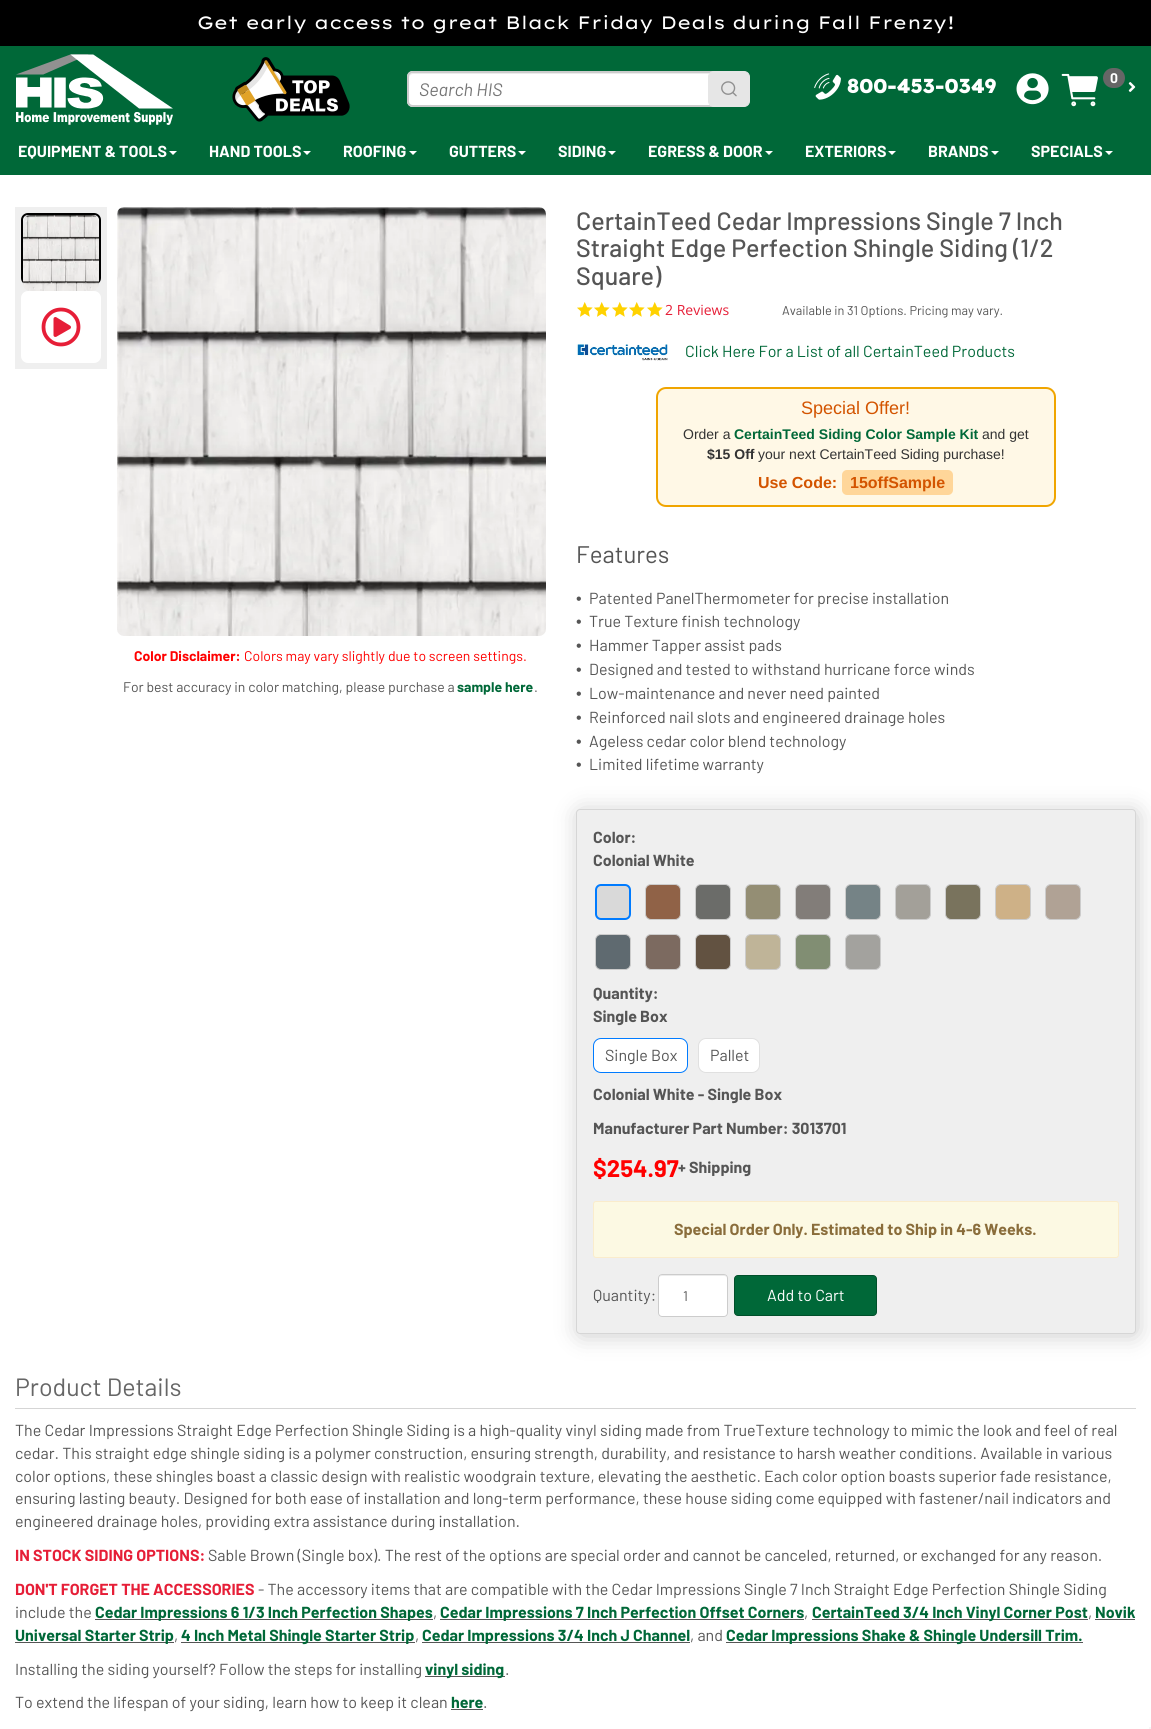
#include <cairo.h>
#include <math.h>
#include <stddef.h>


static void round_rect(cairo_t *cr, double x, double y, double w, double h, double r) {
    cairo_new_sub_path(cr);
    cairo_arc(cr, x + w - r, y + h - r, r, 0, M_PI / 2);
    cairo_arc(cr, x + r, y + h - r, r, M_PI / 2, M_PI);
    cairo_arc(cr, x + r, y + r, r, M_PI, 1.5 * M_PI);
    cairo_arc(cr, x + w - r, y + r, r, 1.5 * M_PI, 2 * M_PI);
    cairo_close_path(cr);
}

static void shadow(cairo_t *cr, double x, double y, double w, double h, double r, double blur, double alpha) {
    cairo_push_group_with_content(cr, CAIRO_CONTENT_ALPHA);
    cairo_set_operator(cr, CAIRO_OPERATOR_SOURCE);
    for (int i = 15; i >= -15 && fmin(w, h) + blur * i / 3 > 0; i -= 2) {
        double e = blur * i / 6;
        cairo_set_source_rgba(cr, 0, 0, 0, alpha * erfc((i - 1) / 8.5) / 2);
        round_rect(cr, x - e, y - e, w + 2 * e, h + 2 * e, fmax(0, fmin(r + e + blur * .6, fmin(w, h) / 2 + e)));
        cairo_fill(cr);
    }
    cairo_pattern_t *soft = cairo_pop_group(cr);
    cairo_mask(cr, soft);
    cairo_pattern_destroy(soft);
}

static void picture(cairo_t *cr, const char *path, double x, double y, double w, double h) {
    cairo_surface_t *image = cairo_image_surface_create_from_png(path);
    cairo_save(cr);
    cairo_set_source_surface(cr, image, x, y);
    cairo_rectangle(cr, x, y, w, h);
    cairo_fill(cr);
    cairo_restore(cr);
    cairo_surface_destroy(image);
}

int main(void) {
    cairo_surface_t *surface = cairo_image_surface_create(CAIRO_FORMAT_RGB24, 1151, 1729);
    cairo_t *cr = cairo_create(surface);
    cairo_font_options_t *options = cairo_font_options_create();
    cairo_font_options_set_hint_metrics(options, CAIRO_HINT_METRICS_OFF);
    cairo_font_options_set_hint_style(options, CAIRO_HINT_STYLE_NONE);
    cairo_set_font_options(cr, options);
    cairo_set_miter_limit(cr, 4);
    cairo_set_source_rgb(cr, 1, 1, 1);
    cairo_paint(cr);
    cairo_set_source_rgb(cr, 0, 0, 0);
    cairo_rectangle(cr, 0, 0, 1151, 46);
    cairo_fill(cr);
    cairo_select_font_face(cr, "Lexend Giga", CAIRO_FONT_SLANT_NORMAL, CAIRO_FONT_WEIGHT_NORMAL);
    cairo_set_font_size(cr, 18);
    cairo_set_source_rgb(cr, 1, 1, 1);
    cairo_move_to(cr, 197, 29);
    cairo_show_text(cr, "Get early access to great Black Friday Deals during Fall Frenzy!");
    cairo_set_source_rgb(cr, 0, 0.408, 0.22);
    cairo_rectangle(cr, 0, 46, 1151, 129);
    cairo_fill(cr);
    picture(cr, "img1.png", 16, 54, 157, 71);
    picture(cr, "img2.png", 232, 57, 118, 65);
    cairo_set_source_rgb(cr, 1, 1, 1);
    cairo_new_path(cr);
    cairo_move_to(cr, 413, 71);
    cairo_line_to(cr, 714, 71);
    cairo_line_to(cr, 714, 107);
    cairo_line_to(cr, 413, 107);
    cairo_curve_to(cr, 409.5, 107, 407, 104.5, 407, 101);
    cairo_line_to(cr, 407, 77);
    cairo_curve_to(cr, 407, 73.5, 409.5, 71, 413, 71);
    cairo_close_path(cr);
    cairo_fill(cr);
    cairo_set_source_rgb(cr, 0.925, 0.925, 0.925);
    cairo_new_path(cr);
    cairo_move_to(cr, 413, 74);
    cairo_line_to(cr, 712, 74);
    cairo_line_to(cr, 712, 73);
    cairo_line_to(cr, 413, 73);
    cairo_curve_to(cr, 411, 73, 409, 75, 409, 77);
    cairo_line_to(cr, 409, 78);
    cairo_curve_to(cr, 409, 76, 411, 74, 413, 74);
    cairo_close_path(cr);
    cairo_fill(cr);
    cairo_new_path(cr);
    cairo_move_to(cr, 413, 72);
    cairo_line_to(cr, 713, 72);
    cairo_line_to(cr, 713, 106);
    cairo_line_to(cr, 413, 106);
    cairo_curve_to(cr, 410, 106, 408, 104, 408, 101);
    cairo_line_to(cr, 408, 77);
    cairo_curve_to(cr, 408, 74, 410, 72, 413, 72);
    cairo_close_path(cr);
    cairo_set_source_rgb(cr, 0.8, 0.8, 0.8);
    cairo_stroke(cr);
    cairo_select_font_face(cr, "Barlow", CAIRO_FONT_SLANT_ITALIC, CAIRO_FONT_WEIGHT_NORMAL);
    cairo_set_source_rgb(cr, 0.463, 0.463, 0.463);
    cairo_move_to(cr, 419, 96);
    cairo_show_text(cr, "Search HIS");
    cairo_set_source_rgb(cr, 0.902, 0.902, 0.902);
    round_rect(cr, 708.5, 71.5, 41, 35, 5.5);
    cairo_fill_preserve(cr);
    cairo_set_line_width(cr, 1);
    cairo_stroke(cr);
    picture(cr, "img3.png", 721, 81, 16, 16);
    picture(cr, "img4.png", 814, 73, 27, 27);
    cairo_select_font_face(cr, "Lexend ExtraBold", CAIRO_FONT_SLANT_NORMAL, CAIRO_FONT_WEIGHT_NORMAL);
    cairo_set_font_size(cr, 20);
    cairo_set_source_rgb(cr, 1, 1, 1);
    cairo_move_to(cr, 847, 93);
    cairo_show_text(cr, "800-453-0349");
    picture(cr, "img5.png", 1016, 73, 33, 32);
    picture(cr, "img6.png", 1061, 73, 37, 34);
    cairo_set_source_rgb(cr, 0.4, 0.4, 0.4);
    round_rect(cr, 1103, 68, 22, 20, 10);
    cairo_fill(cr);
    cairo_select_font_face(cr, "Barlow", CAIRO_FONT_SLANT_NORMAL, CAIRO_FONT_WEIGHT_BOLD);
    cairo_set_font_size(cr, 14);
    cairo_set_source_rgb(cr, 1, 1, 1);
    cairo_move_to(cr, 1110, 83);
    cairo_show_text(cr, "0");
    picture(cr, "img7.png", 1128, 82, 8, 10);
    cairo_set_font_size(cr, 16);
    cairo_move_to(cr, 18, 157);
    cairo_show_text(cr, "EQUIPMENT & TOOLS");
    cairo_new_path(cr);
    cairo_move_to(cr, 169, 151);
    cairo_line_to(cr, 177, 151);
    cairo_line_to(cr, 173, 155);
    cairo_close_path(cr);
    cairo_fill(cr);
    cairo_move_to(cr, 209, 157);
    cairo_show_text(cr, "HAND TOOLS");
    cairo_new_path(cr);
    cairo_move_to(cr, 303, 151);
    cairo_line_to(cr, 311, 151);
    cairo_line_to(cr, 307, 155);
    cairo_close_path(cr);
    cairo_fill(cr);
    cairo_move_to(cr, 343, 157);
    cairo_show_text(cr, "ROOFING");
    cairo_new_path(cr);
    cairo_move_to(cr, 409, 151);
    cairo_line_to(cr, 417, 151);
    cairo_line_to(cr, 413, 155);
    cairo_close_path(cr);
    cairo_fill(cr);
    cairo_move_to(cr, 449, 157);
    cairo_show_text(cr, "GUTTERS");
    cairo_new_path(cr);
    cairo_move_to(cr, 518, 151);
    cairo_line_to(cr, 526, 151);
    cairo_line_to(cr, 522, 155);
    cairo_close_path(cr);
    cairo_fill(cr);
    cairo_move_to(cr, 558, 157);
    cairo_show_text(cr, "SIDING");
    cairo_new_path(cr);
    cairo_move_to(cr, 608, 151);
    cairo_line_to(cr, 616, 151);
    cairo_line_to(cr, 612, 155);
    cairo_close_path(cr);
    cairo_fill(cr);
    cairo_move_to(cr, 648, 157);
    cairo_show_text(cr, "EGRESS & DOOR");
    cairo_new_path(cr);
    cairo_move_to(cr, 765, 151);
    cairo_line_to(cr, 773, 151);
    cairo_line_to(cr, 769, 155);
    cairo_close_path(cr);
    cairo_fill(cr);
    cairo_move_to(cr, 805, 157);
    cairo_show_text(cr, "EXTERIORS");
    cairo_new_path(cr);
    cairo_move_to(cr, 888, 151);
    cairo_line_to(cr, 896, 151);
    cairo_line_to(cr, 892, 155);
    cairo_close_path(cr);
    cairo_fill(cr);
    cairo_move_to(cr, 928, 157);
    cairo_show_text(cr, "BRANDS");
    cairo_new_path(cr);
    cairo_move_to(cr, 991, 151);
    cairo_line_to(cr, 999, 151);
    cairo_line_to(cr, 995, 155);
    cairo_close_path(cr);
    cairo_fill(cr);
    cairo_move_to(cr, 1031, 157);
    cairo_show_text(cr, "SPECIALS");
    cairo_new_path(cr);
    cairo_move_to(cr, 1105, 151);
    cairo_line_to(cr, 1113, 151);
    cairo_line_to(cr, 1109, 155);
    cairo_close_path(cr);
    cairo_fill(cr);
    cairo_set_source_rgb(cr, 0.937, 0.937, 0.937);
    cairo_rectangle(cr, 15, 207, 92, 162);
    cairo_fill(cr);
    cairo_set_source_rgb(cr, 1, 1, 1);
    round_rect(cr, 22, 214, 78, 70, 6);
    cairo_fill_preserve(cr);
    cairo_set_source_rgb(cr, 0, 0, 0);
    cairo_set_line_width(cr, 2);
    cairo_stroke(cr);
    picture(cr, "img8.png", 23, 215, 76, 76);
    cairo_set_source_rgb(cr, 1, 1, 1);
    round_rect(cr, 21, 291, 80, 72, 7);
    cairo_fill(cr);
    picture(cr, "img9.png", 41, 307, 40, 40);
    picture(cr, "img10.png", 117, 207, 429, 429);
    cairo_set_font_size(cr, 14);
    cairo_set_source_rgb(cr, 1, 0, 0);
    cairo_move_to(cr, 134, 661);
    cairo_show_text(cr, "Color Disclaimer:");
    cairo_select_font_face(cr, "Barlow", CAIRO_FONT_SLANT_NORMAL, CAIRO_FONT_WEIGHT_NORMAL);
    cairo_move_to(cr, 244, 661);
    cairo_show_text(cr, "Colors may vary slightly due to screen settings.");
    cairo_set_source_rgb(cr, 0.333, 0.333, 0.333);
    cairo_move_to(cr, 123, 692);
    cairo_show_text(cr, "For best accuracy in color matching, please purchase a");
    cairo_select_font_face(cr, "Barlow", CAIRO_FONT_SLANT_NORMAL, CAIRO_FONT_WEIGHT_BOLD);
    cairo_set_source_rgb(cr, 0, 0.408, 0.22);
    cairo_move_to(cr, 457, 692);
    cairo_show_text(cr, "sample here");
    cairo_select_font_face(cr, "Barlow", CAIRO_FONT_SLANT_NORMAL, CAIRO_FONT_WEIGHT_NORMAL);
    cairo_set_source_rgb(cr, 0.333, 0.333, 0.333);
    cairo_move_to(cr, 534, 692);
    cairo_show_text(cr, ".");
    cairo_select_font_face(cr, "Barlow Medium", CAIRO_FONT_SLANT_NORMAL, CAIRO_FONT_WEIGHT_NORMAL);
    cairo_set_font_size(cr, 25.1);
    cairo_move_to(cr, 576, 230);
    cairo_show_text(cr, "CertainTeed Cedar Impressions Single 7 Inch");
    cairo_move_to(cr, 576, 257);
    cairo_show_text(cr, "Straight Edge Perfection Shingle Siding (1/2");
    cairo_move_to(cr, 576, 285);
    cairo_show_text(cr, "Square)");
    picture(cr, "img11.png", 577, 302, 16, 15);
    picture(cr, "img11.png", 594, 302, 16, 15);
    picture(cr, "img11.png", 612, 302, 16, 15);
    picture(cr, "img11.png", 629, 302, 16, 15);
    picture(cr, "img11.png", 647, 302, 16, 15);
    cairo_select_font_face(cr, "Open Sans", CAIRO_FONT_SLANT_NORMAL, CAIRO_FONT_WEIGHT_NORMAL);
    cairo_set_font_size(cr, 14);
    cairo_set_source_rgb(cr, 0.902, 0.118, 0.216);
    cairo_move_to(cr, 665, 315);
    cairo_show_text(cr, "2 Reviews");
    cairo_select_font_face(cr, "Barlow", CAIRO_FONT_SLANT_NORMAL, CAIRO_FONT_WEIGHT_NORMAL);
    cairo_set_font_size(cr, 12.75);
    cairo_set_source_rgb(cr, 0.333, 0.333, 0.333);
    cairo_move_to(cr, 782, 315);
    cairo_show_text(cr, "Available in 31 Options. Pricing may vary.");
    picture(cr, "img12.png", 576, 344, 92, 17);
    cairo_set_font_size(cr, 16);
    cairo_set_source_rgb(cr, 0, 0.408, 0.22);
    cairo_move_to(cr, 685, 357);
    cairo_show_text(cr, "Click Here For a List of all CertainTeed Products");
    cairo_set_source_rgb(cr, 1, 0.969, 0.902);
    round_rect(cr, 657, 388, 398, 118, 9);
    cairo_fill_preserve(cr);
    cairo_set_source_rgb(cr, 0.941, 0.647, 0);
    cairo_stroke(cr);
    cairo_select_font_face(cr, "Liberation Sans", CAIRO_FONT_SLANT_NORMAL, CAIRO_FONT_WEIGHT_NORMAL);
    cairo_set_font_size(cr, 18);
    cairo_set_source_rgb(cr, 0.827, 0.329, 0);
    cairo_move_to(cr, 801, 414);
    cairo_show_text(cr, "Special Offer!");
    cairo_set_font_size(cr, 14);
    cairo_set_source_rgb(cr, 0.2, 0.2, 0.2);
    cairo_move_to(cr, 683, 439);
    cairo_show_text(cr, "Order a");
    cairo_select_font_face(cr, "Liberation Sans", CAIRO_FONT_SLANT_NORMAL, CAIRO_FONT_WEIGHT_BOLD);
    cairo_set_source_rgb(cr, 0, 0.408, 0.22);
    cairo_move_to(cr, 734, 439);
    cairo_show_text(cr, "CertainTeed Siding Color Sample Kit");
    cairo_select_font_face(cr, "Liberation Sans", CAIRO_FONT_SLANT_NORMAL, CAIRO_FONT_WEIGHT_NORMAL);
    cairo_set_source_rgb(cr, 0.2, 0.2, 0.2);
    cairo_move_to(cr, 982, 439);
    cairo_show_text(cr, "and get");
    cairo_select_font_face(cr, "Liberation Sans", CAIRO_FONT_SLANT_NORMAL, CAIRO_FONT_WEIGHT_BOLD);
    cairo_move_to(cr, 707, 459);
    cairo_show_text(cr, "$15 Off");
    cairo_select_font_face(cr, "Liberation Sans", CAIRO_FONT_SLANT_NORMAL, CAIRO_FONT_WEIGHT_NORMAL);
    cairo_move_to(cr, 758, 459);
    cairo_show_text(cr, "your next CertainTeed Siding purchase!");
    cairo_select_font_face(cr, "Liberation Sans", CAIRO_FONT_SLANT_NORMAL, CAIRO_FONT_WEIGHT_BOLD);
    cairo_set_font_size(cr, 16);
    cairo_set_source_rgb(cr, 0.827, 0.329, 0);
    cairo_move_to(cr, 758, 488);
    cairo_show_text(cr, "Use Code:");
    cairo_set_source_rgb(cr, 1, 0.839, 0.6);
    round_rect(cr, 842, 470, 111, 25, 5);
    cairo_fill(cr);
    cairo_set_source_rgb(cr, 0.827, 0.329, 0);
    cairo_move_to(cr, 850, 488);
    cairo_show_text(cr, "15offSample");
    cairo_select_font_face(cr, "Barlow", CAIRO_FONT_SLANT_NORMAL, CAIRO_FONT_WEIGHT_NORMAL);
    cairo_set_font_size(cr, 24);
    cairo_set_source_rgb(cr, 0.333, 0.333, 0.333);
    cairo_move_to(cr, 576, 563);
    cairo_show_text(cr, "Features");
    cairo_select_font_face(cr, "Liberation Sans", CAIRO_FONT_SLANT_NORMAL, CAIRO_FONT_WEIGHT_NORMAL);
    cairo_set_font_size(cr, 16);
    cairo_move_to(cr, 576, 604);
    cairo_show_text(cr, "•");
    cairo_select_font_face(cr, "Barlow", CAIRO_FONT_SLANT_NORMAL, CAIRO_FONT_WEIGHT_NORMAL);
    cairo_move_to(cr, 589, 604);
    cairo_show_text(cr, "Patented PanelThermometer for precise installation");
    cairo_select_font_face(cr, "Liberation Sans", CAIRO_FONT_SLANT_NORMAL, CAIRO_FONT_WEIGHT_NORMAL);
    cairo_move_to(cr, 576, 627);
    cairo_show_text(cr, "•");
    cairo_select_font_face(cr, "Barlow", CAIRO_FONT_SLANT_NORMAL, CAIRO_FONT_WEIGHT_NORMAL);
    cairo_move_to(cr, 589, 627);
    cairo_show_text(cr, "True Texture finish technology");
    cairo_select_font_face(cr, "Liberation Sans", CAIRO_FONT_SLANT_NORMAL, CAIRO_FONT_WEIGHT_NORMAL);
    cairo_move_to(cr, 576, 651);
    cairo_show_text(cr, "•");
    cairo_select_font_face(cr, "Barlow", CAIRO_FONT_SLANT_NORMAL, CAIRO_FONT_WEIGHT_NORMAL);
    cairo_move_to(cr, 589, 651);
    cairo_show_text(cr, "Hammer Tapper assist pads");
    cairo_select_font_face(cr, "Liberation Sans", CAIRO_FONT_SLANT_NORMAL, CAIRO_FONT_WEIGHT_NORMAL);
    cairo_move_to(cr, 576, 675);
    cairo_show_text(cr, "•");
    cairo_select_font_face(cr, "Barlow", CAIRO_FONT_SLANT_NORMAL, CAIRO_FONT_WEIGHT_NORMAL);
    cairo_move_to(cr, 589, 675);
    cairo_show_text(cr, "Designed and tested to withstand hurricane force winds");
    cairo_select_font_face(cr, "Liberation Sans", CAIRO_FONT_SLANT_NORMAL, CAIRO_FONT_WEIGHT_NORMAL);
    cairo_move_to(cr, 576, 699);
    cairo_show_text(cr, "•");
    cairo_select_font_face(cr, "Barlow", CAIRO_FONT_SLANT_NORMAL, CAIRO_FONT_WEIGHT_NORMAL);
    cairo_move_to(cr, 589, 699);
    cairo_show_text(cr, "Low-maintenance and never need painted");
    cairo_select_font_face(cr, "Liberation Sans", CAIRO_FONT_SLANT_NORMAL, CAIRO_FONT_WEIGHT_NORMAL);
    cairo_move_to(cr, 576, 723);
    cairo_show_text(cr, "•");
    cairo_select_font_face(cr, "Barlow", CAIRO_FONT_SLANT_NORMAL, CAIRO_FONT_WEIGHT_NORMAL);
    cairo_move_to(cr, 589, 723);
    cairo_show_text(cr, "Reinforced nail slots and engineered drainage holes");
    cairo_select_font_face(cr, "Liberation Sans", CAIRO_FONT_SLANT_NORMAL, CAIRO_FONT_WEIGHT_NORMAL);
    cairo_move_to(cr, 576, 747);
    cairo_show_text(cr, "•");
    cairo_select_font_face(cr, "Barlow", CAIRO_FONT_SLANT_NORMAL, CAIRO_FONT_WEIGHT_NORMAL);
    cairo_move_to(cr, 589, 747);
    cairo_show_text(cr, "Ageless cedar color blend technology");
    cairo_select_font_face(cr, "Liberation Sans", CAIRO_FONT_SLANT_NORMAL, CAIRO_FONT_WEIGHT_NORMAL);
    cairo_move_to(cr, 576, 770);
    cairo_show_text(cr, "•");
    cairo_select_font_face(cr, "Barlow", CAIRO_FONT_SLANT_NORMAL, CAIRO_FONT_WEIGHT_NORMAL);
    cairo_move_to(cr, 589, 770);
    cairo_show_text(cr, "Limited lifetime warranty");
    cairo_set_source_rgb(cr, 0, 0, 0);
    shadow(cr, 578, 811, 560, 525, 4, 11.5, 0.2);
    cairo_set_source_rgb(cr, 0.937, 0.937, 0.937);
    round_rect(cr, 576.5, 809.5, 559, 524, 3.5);
    cairo_fill_preserve(cr);
    cairo_set_source_rgb(cr, 0.839, 0.839, 0.839);
    cairo_set_line_width(cr, 1);
    cairo_stroke(cr);
    cairo_select_font_face(cr, "Barlow", CAIRO_FONT_SLANT_NORMAL, CAIRO_FONT_WEIGHT_BOLD);
    cairo_set_source_rgb(cr, 0.333, 0.333, 0.333);
    cairo_move_to(cr, 593, 843);
    cairo_show_text(cr, "Color:");
    cairo_move_to(cr, 593, 866);
    cairo_show_text(cr, "Colonial White");
    cairo_set_source_rgb(cr, 0.851, 0.851, 0.851);
    round_rect(cr, 596, 885, 34, 34, 5);
    cairo_fill_preserve(cr);
    cairo_set_source_rgb(cr, 0, 0.482, 1);
    cairo_set_line_width(cr, 2);
    cairo_stroke(cr);
    cairo_set_source_rgb(cr, 0.565, 0.384, 0.278);
    round_rect(cr, 645.5, 884.5, 35, 35, 5.5);
    cairo_fill_preserve(cr);
    cairo_set_source_rgb(cr, 0.8, 0.8, 0.8);
    cairo_set_line_width(cr, 1);
    cairo_stroke(cr);
    cairo_set_source_rgb(cr, 0.42, 0.424, 0.412);
    round_rect(cr, 695.5, 884.5, 35, 35, 5.5);
    cairo_fill_preserve(cr);
    cairo_set_source_rgb(cr, 0.8, 0.8, 0.8);
    cairo_stroke(cr);
    cairo_set_source_rgb(cr, 0.58, 0.557, 0.455);
    round_rect(cr, 745.5, 884.5, 35, 35, 5.5);
    cairo_fill_preserve(cr);
    cairo_set_source_rgb(cr, 0.8, 0.8, 0.8);
    cairo_stroke(cr);
    cairo_set_source_rgb(cr, 0.51, 0.49, 0.475);
    round_rect(cr, 795.5, 884.5, 35, 35, 5.5);
    cairo_fill_preserve(cr);
    cairo_set_source_rgb(cr, 0.8, 0.8, 0.8);
    cairo_stroke(cr);
    cairo_set_source_rgb(cr, 0.459, 0.514, 0.525);
    round_rect(cr, 845.5, 884.5, 35, 35, 5.5);
    cairo_fill_preserve(cr);
    cairo_set_source_rgb(cr, 0.8, 0.8, 0.8);
    cairo_stroke(cr);
    cairo_set_source_rgb(cr, 0.639, 0.627, 0.6);
    round_rect(cr, 895.5, 884.5, 35, 35, 5.5);
    cairo_fill_preserve(cr);
    cairo_set_source_rgb(cr, 0.8, 0.8, 0.8);
    cairo_stroke(cr);
    cairo_set_source_rgb(cr, 0.475, 0.451, 0.365);
    round_rect(cr, 945.5, 884.5, 35, 35, 5.5);
    cairo_fill_preserve(cr);
    cairo_set_source_rgb(cr, 0.8, 0.8, 0.8);
    cairo_stroke(cr);
    cairo_set_source_rgb(cr, 0.808, 0.694, 0.529);
    round_rect(cr, 995.5, 884.5, 35, 35, 5.5);
    cairo_fill_preserve(cr);
    cairo_set_source_rgb(cr, 0.8, 0.8, 0.8);
    cairo_stroke(cr);
    cairo_set_source_rgb(cr, 0.69, 0.635, 0.584);
    round_rect(cr, 1045.5, 884.5, 35, 35, 5.5);
    cairo_fill_preserve(cr);
    cairo_set_source_rgb(cr, 0.8, 0.8, 0.8);
    cairo_stroke(cr);
    cairo_set_source_rgb(cr, 0.373, 0.416, 0.439);
    round_rect(cr, 595.5, 934.5, 35, 35, 5.5);
    cairo_fill_preserve(cr);
    cairo_set_source_rgb(cr, 0.8, 0.8, 0.8);
    cairo_stroke(cr);
    cairo_set_source_rgb(cr, 0.486, 0.416, 0.376);
    round_rect(cr, 645.5, 934.5, 35, 35, 5.5);
    cairo_fill_preserve(cr);
    cairo_set_source_rgb(cr, 0.8, 0.8, 0.8);
    cairo_stroke(cr);
    cairo_set_source_rgb(cr, 0.384, 0.322, 0.255);
    round_rect(cr, 695.5, 934.5, 35, 35, 5.5);
    cairo_fill_preserve(cr);
    cairo_set_source_rgb(cr, 0.8, 0.8, 0.8);
    cairo_stroke(cr);
    cairo_set_source_rgb(cr, 0.749, 0.706, 0.596);
    round_rect(cr, 745.5, 934.5, 35, 35, 5.5);
    cairo_fill_preserve(cr);
    cairo_set_source_rgb(cr, 0.8, 0.8, 0.8);
    cairo_stroke(cr);
    cairo_set_source_rgb(cr, 0.506, 0.557, 0.451);
    round_rect(cr, 795.5, 934.5, 35, 35, 5.5);
    cairo_fill_preserve(cr);
    cairo_set_source_rgb(cr, 0.8, 0.8, 0.8);
    cairo_stroke(cr);
    cairo_set_source_rgb(cr, 0.639, 0.635, 0.62);
    round_rect(cr, 845.5, 934.5, 35, 35, 5.5);
    cairo_fill_preserve(cr);
    cairo_set_source_rgb(cr, 0.8, 0.8, 0.8);
    cairo_stroke(cr);
    cairo_set_source_rgb(cr, 0.333, 0.333, 0.333);
    cairo_move_to(cr, 593, 999);
    cairo_show_text(cr, "Quantity:");
    cairo_move_to(cr, 593, 1022);
    cairo_show_text(cr, "Single Box");
    cairo_set_source_rgb(cr, 1, 1, 1);
    round_rect(cr, 593.5, 1038.5, 94, 34, 7.5);
    cairo_fill_preserve(cr);
    cairo_set_source_rgb(cr, 0, 0.482, 1);
    cairo_stroke(cr);
    cairo_select_font_face(cr, "Barlow", CAIRO_FONT_SLANT_NORMAL, CAIRO_FONT_WEIGHT_NORMAL);
    cairo_set_source_rgb(cr, 0.333, 0.333, 0.333);
    cairo_move_to(cr, 605, 1061);
    cairo_show_text(cr, "Single Box");
    cairo_set_source_rgb(cr, 1, 1, 1);
    round_rect(cr, 698.5, 1038.5, 61, 34, 7.5);
    cairo_fill_preserve(cr);
    cairo_set_source_rgb(cr, 0.878, 0.878, 0.878);
    cairo_stroke(cr);
    cairo_set_source_rgb(cr, 0.333, 0.333, 0.333);
    cairo_move_to(cr, 710, 1061);
    cairo_show_text(cr, "Pallet");
    cairo_select_font_face(cr, "Barlow", CAIRO_FONT_SLANT_NORMAL, CAIRO_FONT_WEIGHT_BOLD);
    cairo_move_to(cr, 593, 1100);
    cairo_show_text(cr, "Colonial White - Single Box");
    cairo_move_to(cr, 593, 1134);
    cairo_show_text(cr, "Manufacturer Part Number: 3013701");
    cairo_set_font_size(cr, 24);
    cairo_set_source_rgb(cr, 1, 0, 0);
    cairo_move_to(cr, 593, 1177);
    cairo_show_text(cr, "$254.97");
    cairo_set_font_size(cr, 16);
    cairo_set_source_rgb(cr, 0.333, 0.333, 0.333);
    cairo_move_to(cr, 678, 1173);
    cairo_show_text(cr, "+ Shipping");
    cairo_set_source_rgb(cr, 0.988, 0.973, 0.89);
    round_rect(cr, 593.5, 1201.5, 525, 56, 2.5);
    cairo_fill_preserve(cr);
    cairo_set_source_rgb(cr, 0.98, 0.922, 0.8);
    cairo_stroke(cr);
    cairo_set_source_rgb(cr, 0.541, 0.427, 0.231);
    cairo_move_to(cr, 674, 1235);
    cairo_show_text(cr, "Special Order Only. Estimated to Ship in 4-6 Weeks.");
    cairo_select_font_face(cr, "Barlow", CAIRO_FONT_SLANT_NORMAL, CAIRO_FONT_WEIGHT_NORMAL);
    cairo_set_source_rgb(cr, 0.333, 0.333, 0.333);
    cairo_move_to(cr, 593, 1301);
    cairo_show_text(cr, "Quantity:");
    cairo_set_source_rgb(cr, 1, 1, 1);
    round_rect(cr, 658, 1274, 70, 43, 4);
    cairo_fill(cr);
    cairo_set_source_rgb(cr, 0.925, 0.925, 0.925);
    cairo_new_path(cr);
    cairo_move_to(cr, 662, 1276);
    cairo_line_to(cr, 724, 1276);
    cairo_curve_to(cr, 726, 1276, 727, 1277, 727, 1279);
    cairo_curve_to(cr, 727, 1272, 718, 1275, 714, 1275);
    cairo_line_to(cr, 672, 1275);
    cairo_curve_to(cr, 668, 1275, 659, 1272, 659, 1279);
    cairo_curve_to(cr, 659, 1277, 660, 1276, 662, 1276);
    cairo_close_path(cr);
    cairo_fill(cr);
    round_rect(cr, 658.5, 1274.5, 69, 42, 3.5);
    cairo_set_source_rgb(cr, 0.8, 0.8, 0.8);
    cairo_stroke(cr);
    cairo_set_font_size(cr, 14);
    cairo_set_source_rgb(cr, 0.333, 0.333, 0.333);
    cairo_move_to(cr, 683, 1301);
    cairo_show_text(cr, "1");
    cairo_set_source_rgb(cr, 0, 0.408, 0.22);
    round_rect(cr, 734.5, 1275.5, 142, 40, 3.5);
    cairo_fill_preserve(cr);
    cairo_set_source_rgb(cr, 0, 0.31, 0.165);
    cairo_stroke(cr);
    cairo_set_font_size(cr, 16);
    cairo_set_source_rgb(cr, 1, 1, 1);
    cairo_move_to(cr, 767, 1301);
    cairo_show_text(cr, "Add to Cart");
    cairo_set_source_rgb(cr, 0.835, 0.835, 0.835);
    cairo_rectangle(cr, 15, 1408, 1121, 1);
    cairo_fill(cr);
    cairo_set_font_size(cr, 25);
    cairo_set_source_rgb(cr, 0.4, 0.4, 0.4);
    cairo_move_to(cr, 15, 1396);
    cairo_show_text(cr, "Product Details");
    cairo_set_font_size(cr, 16);
    cairo_set_source_rgb(cr, 0.333, 0.333, 0.333);
    cairo_move_to(cr, 15, 1436);
    cairo_show_text(cr, "The Cedar Impressions Straight Edge Perfection Shingle Siding is a high-quality vinyl siding made from TrueTexture technology to mimic the look and feel of real");
    cairo_move_to(cr, 15, 1459);
    cairo_show_text(cr, "cedar. This straight edge shingle siding is a polymer construction, ensuring strength, durability, and resistance to harsh weather conditions. Available in various");
    cairo_move_to(cr, 15, 1482);
    cairo_show_text(cr, "color options, these shingles boast a classic design with realistic woodgrain texture, elevating the aesthetic. Each color option boasts superior fade resistance,");
    cairo_move_to(cr, 15, 1504);
    cairo_show_text(cr, "ensuring lasting beauty. Designed for both ease of installation and long-term performance, these house siding come equipped with fastener/nail indicators and");
    cairo_move_to(cr, 15, 1527);
    cairo_show_text(cr, "engineered drainage holes, providing extra assistance during installation.");
    cairo_select_font_face(cr, "Barlow", CAIRO_FONT_SLANT_NORMAL, CAIRO_FONT_WEIGHT_BOLD);
    cairo_set_source_rgb(cr, 0.902, 0.118, 0.216);
    cairo_move_to(cr, 15, 1561);
    cairo_show_text(cr, "IN STOCK SIDING OPTIONS:");
    cairo_select_font_face(cr, "Barlow", CAIRO_FONT_SLANT_NORMAL, CAIRO_FONT_WEIGHT_NORMAL);
    cairo_set_source_rgb(cr, 0.333, 0.333, 0.333);
    cairo_move_to(cr, 208, 1561);
    cairo_show_text(cr, "Sable Brown (Single box). The rest of the options are special order and cannot be canceled, returned, or exchanged for any reason.");
    cairo_select_font_face(cr, "Barlow", CAIRO_FONT_SLANT_NORMAL, CAIRO_FONT_WEIGHT_BOLD);
    cairo_set_source_rgb(cr, 0.902, 0.118, 0.216);
    cairo_move_to(cr, 15, 1595);
    cairo_show_text(cr, "DON'T FORGET THE ACCESSORIES");
    cairo_select_font_face(cr, "Barlow", CAIRO_FONT_SLANT_NORMAL, CAIRO_FONT_WEIGHT_NORMAL);
    cairo_set_source_rgb(cr, 0.333, 0.333, 0.333);
    cairo_move_to(cr, 258, 1595);
    cairo_show_text(cr, "- The accessory items that are compatible with the Cedar Impressions Single 7 Inch Straight Edge Perfection Shingle Siding");
    cairo_move_to(cr, 15, 1618);
    cairo_show_text(cr, "include the");
    cairo_rectangle(cr, 95, 1619, 338, 1);
    cairo_fill(cr);
    cairo_select_font_face(cr, "Barlow", CAIRO_FONT_SLANT_NORMAL, CAIRO_FONT_WEIGHT_BOLD);
    cairo_set_source_rgb(cr, 0, 0.408, 0.22);
    cairo_move_to(cr, 95, 1618);
    cairo_show_text(cr, "Cedar Impressions 6 1/3 Inch Perfection Shapes");
    cairo_select_font_face(cr, "Barlow", CAIRO_FONT_SLANT_NORMAL, CAIRO_FONT_WEIGHT_NORMAL);
    cairo_set_source_rgb(cr, 0.333, 0.333, 0.333);
    cairo_move_to(cr, 433, 1618);
    cairo_show_text(cr, ",");
    cairo_rectangle(cr, 440, 1619, 364, 1);
    cairo_fill(cr);
    cairo_select_font_face(cr, "Barlow", CAIRO_FONT_SLANT_NORMAL, CAIRO_FONT_WEIGHT_BOLD);
    cairo_set_source_rgb(cr, 0, 0.408, 0.22);
    cairo_move_to(cr, 440, 1618);
    cairo_show_text(cr, "Cedar Impressions 7 Inch Perfection Offset Corners");
    cairo_select_font_face(cr, "Barlow", CAIRO_FONT_SLANT_NORMAL, CAIRO_FONT_WEIGHT_NORMAL);
    cairo_set_source_rgb(cr, 0.333, 0.333, 0.333);
    cairo_move_to(cr, 804, 1618);
    cairo_show_text(cr, ",");
    cairo_rectangle(cr, 812, 1619, 276, 1);
    cairo_fill(cr);
    cairo_select_font_face(cr, "Barlow", CAIRO_FONT_SLANT_NORMAL, CAIRO_FONT_WEIGHT_BOLD);
    cairo_set_source_rgb(cr, 0, 0.408, 0.22);
    cairo_move_to(cr, 812, 1618);
    cairo_show_text(cr, "CertainTeed 3/4 Inch Vinyl Corner Post");
    cairo_select_font_face(cr, "Barlow", CAIRO_FONT_SLANT_NORMAL, CAIRO_FONT_WEIGHT_NORMAL);
    cairo_set_source_rgb(cr, 0.333, 0.333, 0.333);
    cairo_move_to(cr, 1088, 1618);
    cairo_show_text(cr, ",");
    cairo_select_font_face(cr, "Barlow", CAIRO_FONT_SLANT_NORMAL, CAIRO_FONT_WEIGHT_BOLD);
    cairo_set_source_rgb(cr, 0, 0.408, 0.22);
    cairo_move_to(cr, 1095, 1618);
    cairo_show_text(cr, "Novik");
    cairo_set_source_rgb(cr, 0.333, 0.333, 0.333);
    cairo_rectangle(cr, 1095, 1619, 40, 1);
    cairo_fill(cr);
    cairo_rectangle(cr, 15, 1642, 159, 1);
    cairo_fill(cr);
    cairo_set_source_rgb(cr, 0, 0.408, 0.22);
    cairo_move_to(cr, 15, 1641);
    cairo_show_text(cr, "Universal Starter Strip");
    cairo_select_font_face(cr, "Barlow", CAIRO_FONT_SLANT_NORMAL, CAIRO_FONT_WEIGHT_NORMAL);
    cairo_set_source_rgb(cr, 0.333, 0.333, 0.333);
    cairo_move_to(cr, 174, 1641);
    cairo_show_text(cr, ",");
    cairo_rectangle(cr, 181, 1642, 234, 1);
    cairo_fill(cr);
    cairo_select_font_face(cr, "Barlow", CAIRO_FONT_SLANT_NORMAL, CAIRO_FONT_WEIGHT_BOLD);
    cairo_set_source_rgb(cr, 0, 0.408, 0.22);
    cairo_move_to(cr, 181, 1641);
    cairo_show_text(cr, "4 Inch Metal Shingle Starter Strip");
    cairo_select_font_face(cr, "Barlow", CAIRO_FONT_SLANT_NORMAL, CAIRO_FONT_WEIGHT_NORMAL);
    cairo_set_source_rgb(cr, 0.333, 0.333, 0.333);
    cairo_move_to(cr, 415, 1641);
    cairo_show_text(cr, ",");
    cairo_rectangle(cr, 422, 1642, 268, 1);
    cairo_fill(cr);
    cairo_select_font_face(cr, "Barlow", CAIRO_FONT_SLANT_NORMAL, CAIRO_FONT_WEIGHT_BOLD);
    cairo_set_source_rgb(cr, 0, 0.408, 0.22);
    cairo_move_to(cr, 422, 1641);
    cairo_show_text(cr, "Cedar Impressions 3/4 Inch J Channel");
    cairo_select_font_face(cr, "Barlow", CAIRO_FONT_SLANT_NORMAL, CAIRO_FONT_WEIGHT_NORMAL);
    cairo_set_source_rgb(cr, 0.333, 0.333, 0.333);
    cairo_move_to(cr, 690, 1641);
    cairo_show_text(cr, ", and");
    cairo_rectangle(cr, 726, 1642, 357, 1);
    cairo_fill(cr);
    cairo_select_font_face(cr, "Barlow", CAIRO_FONT_SLANT_NORMAL, CAIRO_FONT_WEIGHT_BOLD);
    cairo_set_source_rgb(cr, 0, 0.408, 0.22);
    cairo_move_to(cr, 726, 1641);
    cairo_show_text(cr, "Cedar Impressions Shake & Shingle Undersill Trim.");
    cairo_select_font_face(cr, "Barlow", CAIRO_FONT_SLANT_NORMAL, CAIRO_FONT_WEIGHT_NORMAL);
    cairo_set_source_rgb(cr, 0.333, 0.333, 0.333);
    cairo_move_to(cr, 15, 1675);
    cairo_show_text(cr, "Installing the siding yourself? Follow the steps for installing");
    cairo_rectangle(cr, 425, 1676, 80, 1);
    cairo_fill(cr);
    cairo_select_font_face(cr, "Barlow", CAIRO_FONT_SLANT_NORMAL, CAIRO_FONT_WEIGHT_BOLD);
    cairo_set_source_rgb(cr, 0, 0.408, 0.22);
    cairo_move_to(cr, 425, 1675);
    cairo_show_text(cr, "vinyl siding");
    cairo_select_font_face(cr, "Barlow", CAIRO_FONT_SLANT_NORMAL, CAIRO_FONT_WEIGHT_NORMAL);
    cairo_set_source_rgb(cr, 0.333, 0.333, 0.333);
    cairo_move_to(cr, 505, 1675);
    cairo_show_text(cr, ".");
    cairo_move_to(cr, 15, 1708);
    cairo_show_text(cr, "To extend the lifespan of your siding, learn how to keep it clean");
    cairo_select_font_face(cr, "Barlow", CAIRO_FONT_SLANT_NORMAL, CAIRO_FONT_WEIGHT_BOLD);
    cairo_set_source_rgb(cr, 0, 0.408, 0.22);
    cairo_move_to(cr, 451, 1708);
    cairo_show_text(cr, "here");
    cairo_set_source_rgb(cr, 0.333, 0.333, 0.333);
    cairo_rectangle(cr, 451, 1709, 32, 1);
    cairo_fill(cr);
    cairo_select_font_face(cr, "Barlow", CAIRO_FONT_SLANT_NORMAL, CAIRO_FONT_WEIGHT_NORMAL);
    cairo_move_to(cr, 483, 1708);
    cairo_show_text(cr, ".");
    cairo_set_source_rgb(cr, 0.961, 0.961, 0.961);
    cairo_rectangle(cr, 1149, 1727, 2, 2);
    cairo_fill(cr);
    cairo_surface_write_to_png(surface, "page.png");
    cairo_font_options_destroy(options);
    cairo_destroy(cr);
    cairo_surface_destroy(surface);
    return 0;
}
